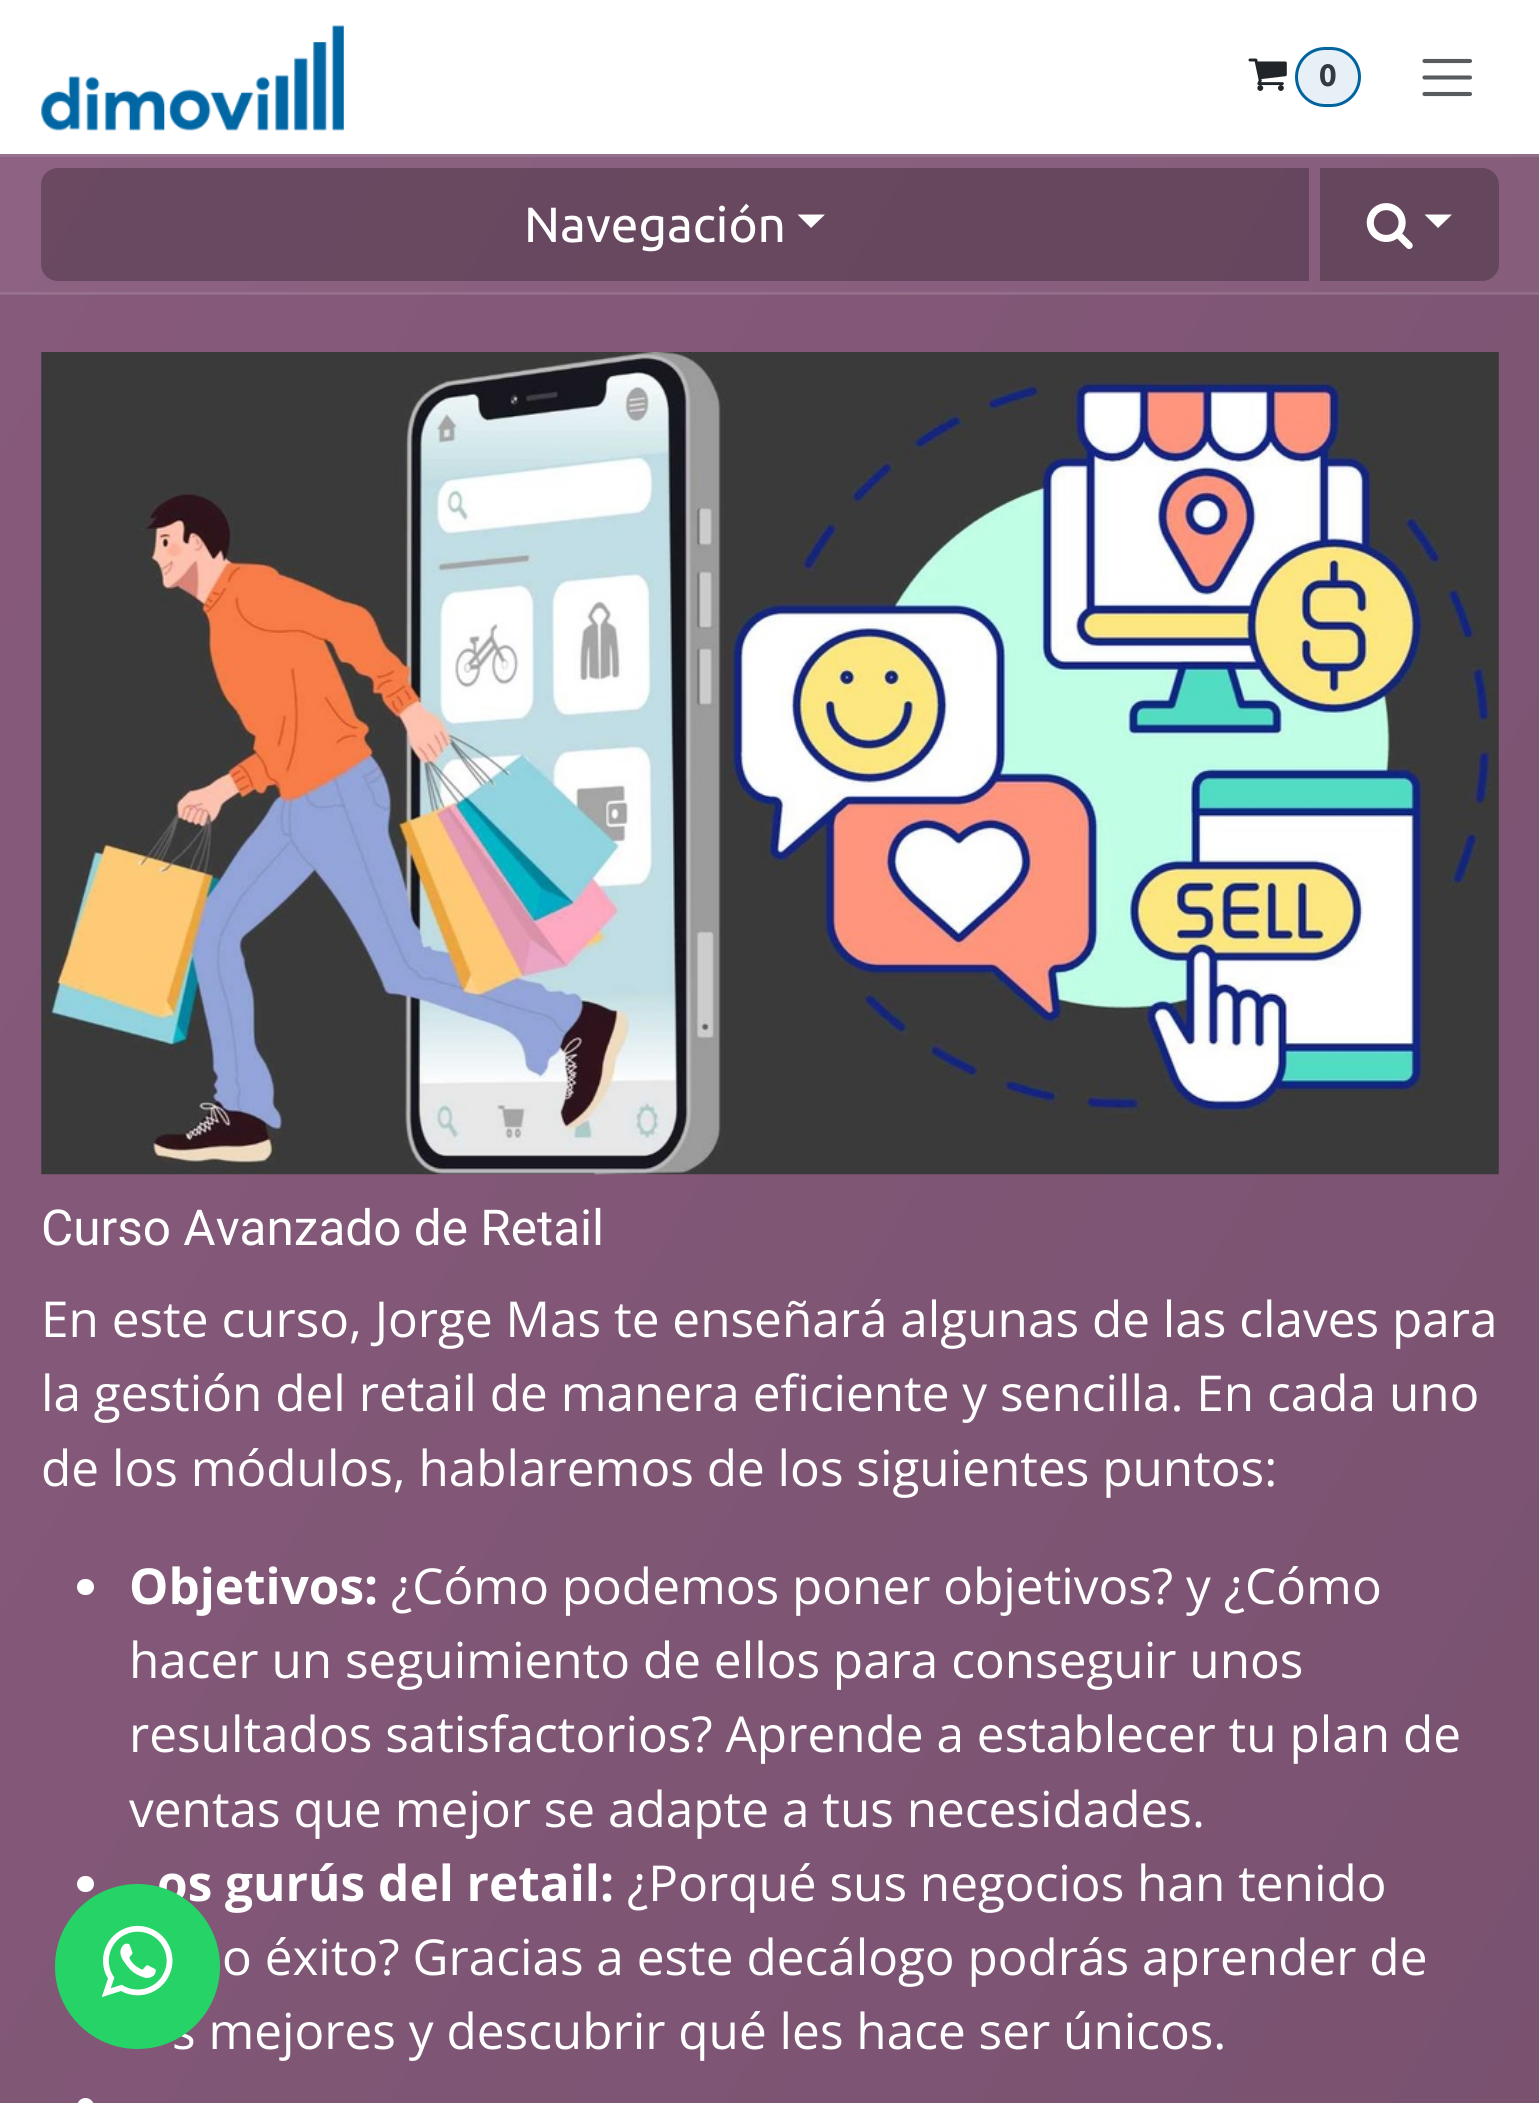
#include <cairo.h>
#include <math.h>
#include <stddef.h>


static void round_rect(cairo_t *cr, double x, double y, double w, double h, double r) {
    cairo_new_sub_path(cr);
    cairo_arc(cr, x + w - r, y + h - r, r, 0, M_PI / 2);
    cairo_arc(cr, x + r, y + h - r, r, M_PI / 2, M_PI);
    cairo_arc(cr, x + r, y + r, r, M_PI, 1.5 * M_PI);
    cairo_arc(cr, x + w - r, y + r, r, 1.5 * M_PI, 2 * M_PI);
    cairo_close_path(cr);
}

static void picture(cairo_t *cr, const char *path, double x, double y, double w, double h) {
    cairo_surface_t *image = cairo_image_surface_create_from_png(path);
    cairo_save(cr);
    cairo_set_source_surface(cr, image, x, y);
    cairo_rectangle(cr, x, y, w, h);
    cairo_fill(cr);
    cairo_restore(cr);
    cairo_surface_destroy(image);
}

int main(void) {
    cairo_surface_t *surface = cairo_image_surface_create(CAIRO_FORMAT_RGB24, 1539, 2103);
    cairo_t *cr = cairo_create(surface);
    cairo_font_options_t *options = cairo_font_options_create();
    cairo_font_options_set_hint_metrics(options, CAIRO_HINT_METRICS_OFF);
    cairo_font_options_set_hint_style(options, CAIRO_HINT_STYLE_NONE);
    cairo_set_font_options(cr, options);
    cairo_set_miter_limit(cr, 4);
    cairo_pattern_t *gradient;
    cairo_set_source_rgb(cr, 1, 1, 1);
    cairo_paint(cr);
    picture(cr, "img1.png", 41, 25, 303, 106);
    picture(cr, "img2.png", 1248, 58, 39, 33);
    cairo_set_source_rgb(cr, 0.902, 0.941, 0.961);
    round_rect(cr, 1296.5, 48.5, 63, 57, 28.5);
    cairo_fill_preserve(cr);
    cairo_set_source_rgb(cr, 0, 0.392, 0.624);
    cairo_set_line_width(cr, 3);
    cairo_stroke(cr);
    cairo_select_font_face(cr, "Ubuntu", CAIRO_FONT_SLANT_NORMAL, CAIRO_FONT_WEIGHT_BOLD);
    cairo_set_font_size(cr, 31);
    cairo_set_source_rgb(cr, 0.204, 0.227, 0.251);
    cairo_move_to(cr, 1319, 86);
    cairo_show_text(cr, "0");
    cairo_new_path(cr);
    cairo_move_to(cr, 1424.5, 61);
    cairo_line_to(cr, 1470, 61);
    cairo_move_to(cr, 1424.5, 77.5);
    cairo_line_to(cr, 1470, 77.5);
    cairo_move_to(cr, 1424.5, 94);
    cairo_line_to(cr, 1470, 94);
    cairo_set_source_rgb(cr, 0.349, 0.361, 0.373);
    cairo_set_line_width(cr, 4.1);
    cairo_set_line_cap(cr, CAIRO_LINE_CAP_ROUND);
    cairo_stroke(cr);
    gradient = cairo_pattern_create_linear(-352, 764, 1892, 2060);
    cairo_pattern_add_color_stop_rgba(gradient, 0, 0.529, 0.353, 0.482, 1);
    cairo_pattern_add_color_stop_rgba(gradient, 1, 0.471, 0.318, 0.435, 1);
    cairo_set_source(cr, gradient);
    cairo_pattern_destroy(gradient);
    cairo_rectangle(cr, 0, 295, 1539, 1808);
    cairo_fill(cr);
    gradient = cairo_pattern_create_linear(-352, 764, 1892, 2060);
    cairo_pattern_add_color_stop_rgba(gradient, 0, 0.576, 0.42, 0.533, 1);
    cairo_pattern_add_color_stop_rgba(gradient, 1, 0.525, 0.384, 0.49, 1);
    cairo_set_source(cr, gradient);
    cairo_pattern_destroy(gradient);
    cairo_rectangle(cr, 0, 294, 1539, 1);
    cairo_fill(cr);
    gradient = cairo_pattern_create_linear(-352, 764, 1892, 2060);
    cairo_pattern_add_color_stop_rgba(gradient, 0, 0.553, 0.384, 0.51, 1);
    cairo_pattern_add_color_stop_rgba(gradient, 1, 0.498, 0.353, 0.463, 1);
    cairo_set_source(cr, gradient);
    cairo_pattern_destroy(gradient);
    cairo_rectangle(cr, 0, 157, 1539, 135);
    cairo_fill(cr);
    gradient = cairo_pattern_create_linear(-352, 764, 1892, 2060);
    cairo_pattern_add_color_stop_rgba(gradient, 0, 0.596, 0.447, 0.561, 1);
    cairo_pattern_add_color_stop_rgba(gradient, 1, 0.549, 0.42, 0.518, 1);
    cairo_set_source(cr, gradient);
    cairo_pattern_destroy(gradient);
    cairo_rectangle(cr, 0, 292, 1539, 2);
    cairo_fill(cr);
    cairo_rectangle(cr, 0, 154, 1539, 3);
    cairo_fill(cr);
    cairo_set_source_rgba(cr, 0, 0, 0, 0.25);
    cairo_new_path(cr);
    cairo_move_to(cr, 58, 168);
    cairo_line_to(cr, 1309, 168);
    cairo_line_to(cr, 1309, 281);
    cairo_line_to(cr, 58, 281);
    cairo_curve_to(cr, 48.5, 281, 41, 273.5, 41, 264);
    cairo_line_to(cr, 41, 185);
    cairo_curve_to(cr, 41, 175.5, 48.5, 168, 58, 168);
    cairo_close_path(cr);
    cairo_fill(cr);
    cairo_select_font_face(cr, "Ubuntu", CAIRO_FONT_SLANT_NORMAL, CAIRO_FONT_WEIGHT_NORMAL);
    cairo_set_font_size(cr, 49.5);
    cairo_set_source_rgb(cr, 1, 1, 1);
    cairo_move_to(cr, 524, 242);
    cairo_show_text(cr, "Navegación");
    cairo_new_path(cr);
    cairo_move_to(cr, 797.5, 214.5);
    cairo_line_to(cr, 825, 214.5);
    cairo_line_to(cr, 811, 228);
    cairo_close_path(cr);
    cairo_fill(cr);
    cairo_set_source_rgb(cr, 0.396, 0.278, 0.365);
    cairo_new_path(cr);
    cairo_move_to(cr, 1320, 168);
    cairo_line_to(cr, 1482, 168);
    cairo_curve_to(cr, 1491.5, 168, 1499, 175.5, 1499, 185);
    cairo_line_to(cr, 1499, 264);
    cairo_curve_to(cr, 1499, 273.5, 1491.5, 281, 1482, 281);
    cairo_line_to(cr, 1320, 281);
    cairo_close_path(cr);
    cairo_fill(cr);
    picture(cr, "img3.png", 1366, 203, 47, 47);
    cairo_set_source_rgb(cr, 1, 1, 1);
    cairo_new_path(cr);
    cairo_move_to(cr, 1424.5, 214.5);
    cairo_line_to(cr, 1452, 214.5);
    cairo_line_to(cr, 1438, 228);
    cairo_close_path(cr);
    cairo_fill(cr);
    picture(cr, "img4.png", 41, 352, 1458, 823);
    cairo_select_font_face(cr, "Roboto", CAIRO_FONT_SLANT_NORMAL, CAIRO_FONT_WEIGHT_NORMAL);
    cairo_move_to(cr, 41, 1245);
    cairo_show_text(cr, "Curso Avanzado de Retail");
    cairo_select_font_face(cr, "Open Sans", CAIRO_FONT_SLANT_NORMAL, CAIRO_FONT_WEIGHT_NORMAL);
    cairo_move_to(cr, 41, 1337);
    cairo_show_text(cr, "En este curso, Jorge Mas te enseñará algunas de las claves para");
    cairo_move_to(cr, 41, 1411);
    cairo_show_text(cr, "la gestión del retail de manera eficiente y sencilla. En cada uno");
    cairo_move_to(cr, 41, 1486);
    cairo_show_text(cr, "de los módulos, hablaremos de los siguientes puntos:");
    round_rect(cr, 77, 1579, 17, 16, 8);
    cairo_fill(cr);
    cairo_select_font_face(cr, "Open Sans", CAIRO_FONT_SLANT_NORMAL, CAIRO_FONT_WEIGHT_BOLD);
    cairo_move_to(cr, 129, 1604);
    cairo_show_text(cr, "Objetivos:");
    cairo_select_font_face(cr, "Open Sans", CAIRO_FONT_SLANT_NORMAL, CAIRO_FONT_WEIGHT_NORMAL);
    cairo_move_to(cr, 391, 1604);
    cairo_show_text(cr, "¿Cómo podemos poner objetivos? y ¿Cómo");
    cairo_move_to(cr, 129, 1678);
    cairo_show_text(cr, "hacer un seguimiento de ellos para conseguir unos");
    cairo_move_to(cr, 129, 1752);
    cairo_show_text(cr, "resultados satisfactorios? Aprende a establecer tu plan de");
    cairo_move_to(cr, 129, 1827);
    cairo_show_text(cr, "ventas que mejor se adapte a tus necesidades.");
    round_rect(cr, 77, 1876, 17, 16, 8);
    cairo_fill(cr);
    cairo_select_font_face(cr, "Open Sans", CAIRO_FONT_SLANT_NORMAL, CAIRO_FONT_WEIGHT_BOLD);
    cairo_move_to(cr, 157, 1901);
    cairo_show_text(cr, "os gurús del retail:");
    cairo_select_font_face(cr, "Open Sans", CAIRO_FONT_SLANT_NORMAL, CAIRO_FONT_WEIGHT_NORMAL);
    cairo_move_to(cr, 627, 1901);
    cairo_show_text(cr, "¿Porqué sus negocios han tenido");
    cairo_move_to(cr, 222, 1975);
    cairo_show_text(cr, "o éxito? Gracias a este decálogo podrás aprender de");
    cairo_move_to(cr, 172, 2049);
    cairo_show_text(cr, "s mejores y descubrir qué les hace ser únicos.");
    round_rect(cr, 77, 2098, 17, 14, 8.5);
    cairo_fill(cr);
    cairo_set_source_rgb(cr, 0.145, 0.827, 0.4);
    cairo_arc(cr, 137.5, 1966.5, 82.5, 0, 2 * M_PI);
    cairo_fill(cr);
    picture(cr, "img5.png", 101, 1925, 72, 73);
    cairo_surface_write_to_png(surface, "page.png");
    cairo_font_options_destroy(options);
    cairo_destroy(cr);
    cairo_surface_destroy(surface);
    return 0;
}
